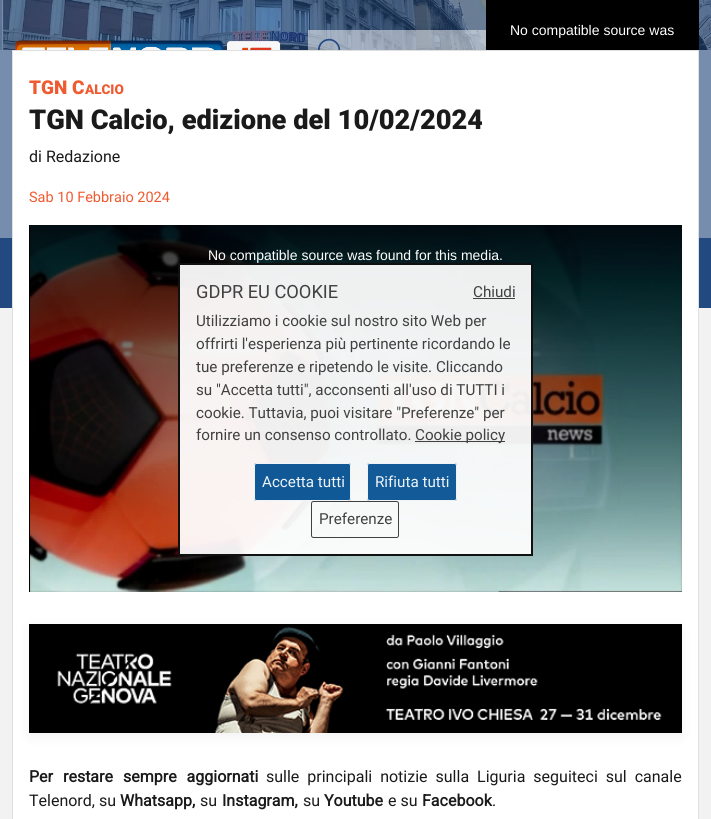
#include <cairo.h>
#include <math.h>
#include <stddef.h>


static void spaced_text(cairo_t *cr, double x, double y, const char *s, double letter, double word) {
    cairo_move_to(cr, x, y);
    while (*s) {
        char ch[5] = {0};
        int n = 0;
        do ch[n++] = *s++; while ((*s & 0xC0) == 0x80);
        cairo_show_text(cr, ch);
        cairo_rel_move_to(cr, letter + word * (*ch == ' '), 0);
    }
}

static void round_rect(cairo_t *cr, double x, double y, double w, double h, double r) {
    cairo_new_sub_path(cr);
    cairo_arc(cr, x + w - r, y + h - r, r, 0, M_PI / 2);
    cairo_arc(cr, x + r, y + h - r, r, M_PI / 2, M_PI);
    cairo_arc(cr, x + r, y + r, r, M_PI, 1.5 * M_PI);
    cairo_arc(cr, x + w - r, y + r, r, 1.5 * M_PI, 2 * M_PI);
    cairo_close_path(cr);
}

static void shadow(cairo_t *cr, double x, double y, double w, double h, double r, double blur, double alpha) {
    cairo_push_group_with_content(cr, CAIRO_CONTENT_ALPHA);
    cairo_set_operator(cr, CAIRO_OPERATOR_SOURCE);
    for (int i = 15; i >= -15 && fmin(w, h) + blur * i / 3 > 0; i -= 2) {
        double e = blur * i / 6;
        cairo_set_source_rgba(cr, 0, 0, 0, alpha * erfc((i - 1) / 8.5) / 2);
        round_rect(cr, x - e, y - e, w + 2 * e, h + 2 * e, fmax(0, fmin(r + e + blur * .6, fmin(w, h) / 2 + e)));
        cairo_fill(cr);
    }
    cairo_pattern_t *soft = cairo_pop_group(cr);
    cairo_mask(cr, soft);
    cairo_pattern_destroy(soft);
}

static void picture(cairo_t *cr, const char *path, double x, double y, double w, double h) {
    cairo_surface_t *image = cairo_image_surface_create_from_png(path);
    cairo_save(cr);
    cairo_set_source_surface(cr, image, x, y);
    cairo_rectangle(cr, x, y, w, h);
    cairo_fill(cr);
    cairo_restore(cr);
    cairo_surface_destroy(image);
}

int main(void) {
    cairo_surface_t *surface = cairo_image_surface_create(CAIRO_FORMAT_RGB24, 711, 819);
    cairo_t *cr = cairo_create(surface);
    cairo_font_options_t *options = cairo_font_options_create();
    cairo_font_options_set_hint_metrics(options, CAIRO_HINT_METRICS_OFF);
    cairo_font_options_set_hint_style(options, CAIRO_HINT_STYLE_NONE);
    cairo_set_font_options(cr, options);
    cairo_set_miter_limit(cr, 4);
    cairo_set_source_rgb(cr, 0.949, 0.949, 0.949);
    cairo_paint(cr);
    cairo_set_source_rgb(cr, 0.463, 0.553, 0.682);
    cairo_rectangle(cr, 0, 50, 711, 188);
    cairo_fill(cr);
    picture(cr, "img1.png", 0, 0, 711, 50);
    picture(cr, "img2.png", 15, 40, 266, 10);
    cairo_set_source_rgba(cr, 1, 1, 1, 0.5);
    cairo_rectangle(cr, 308, 30, 178, 20);
    cairo_fill(cr);
    picture(cr, "img3.png", 318, 38, 23, 12);
    cairo_set_source_rgb(cr, 0, 0, 0);
    cairo_rectangle(cr, 486, 0, 213, 50);
    cairo_fill(cr);
    cairo_select_font_face(cr, "Liberation Sans", CAIRO_FONT_SLANT_NORMAL, CAIRO_FONT_WEIGHT_NORMAL);
    cairo_set_font_size(cr, 14);
    cairo_set_source_rgb(cr, 1, 1, 1);
    cairo_move_to(cr, 510, 35);
    cairo_show_text(cr, "No compatible source was");
    cairo_set_source_rgb(cr, 0.137, 0.29, 0.502);
    cairo_rectangle(cr, 0, 238, 711, 70);
    cairo_fill(cr);
    cairo_set_source_rgb(cr, 1, 1, 1);
    cairo_rectangle(cr, 12.5, 50.5, 686, 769);
    cairo_fill_preserve(cr);
    cairo_set_source_rgb(cr, 0.875, 0.875, 0.875);
    cairo_set_line_width(cr, 1);
    cairo_stroke(cr);
    cairo_select_font_face(cr, "Roboto Black", CAIRO_FONT_SLANT_NORMAL, CAIRO_FONT_WEIGHT_NORMAL);
    cairo_set_font_size(cr, 19);
    cairo_set_source_rgb(cr, 0.937, 0.353, 0.188);
    cairo_move_to(cr, 29, 94);
    cairo_show_text(cr, "TGN C");
    cairo_set_font_size(cr, 13.5);
    cairo_move_to(cr, 85, 94);
    cairo_show_text(cr, "ALCIO");
    cairo_set_font_size(cr, 27.25);
    cairo_set_source_rgb(cr, 0.102, 0.102, 0.102);
    cairo_move_to(cr, 29, 129);
    cairo_show_text(cr, "TGN Calcio, edizione del 10/02/2024");
    cairo_select_font_face(cr, "Roboto", CAIRO_FONT_SLANT_NORMAL, CAIRO_FONT_WEIGHT_NORMAL);
    cairo_set_font_size(cr, 16);
    cairo_move_to(cr, 29, 162);
    cairo_show_text(cr, "di Redazione");
    cairo_set_font_size(cr, 14.5);
    cairo_set_source_rgb(cr, 0.937, 0.353, 0.188);
    cairo_move_to(cr, 29, 202);
    cairo_show_text(cr, "Sab 10 Febbraio 2024");
    cairo_set_source_rgb(cr, 0, 0, 0);
    cairo_rectangle(cr, 29, 225, 1, 367);
    cairo_fill(cr);
    picture(cr, "img4.png", 30, 225, 652, 367);
    cairo_select_font_face(cr, "Liberation Sans", CAIRO_FONT_SLANT_NORMAL, CAIRO_FONT_WEIGHT_NORMAL);
    cairo_set_font_size(cr, 14);
    cairo_set_source_rgb(cr, 1, 1, 1);
    cairo_move_to(cr, 208, 260);
    cairo_show_text(cr, "No compatible source was found for this media.");
    cairo_set_source_rgb(cr, 0, 0, 0);
    shadow(cr, 29, 628, 653, 109, 0, 6, 0.05);
    picture(cr, "img5.png", 29, 624, 653, 109);
    cairo_select_font_face(cr, "Roboto", CAIRO_FONT_SLANT_NORMAL, CAIRO_FONT_WEIGHT_BOLD);
    cairo_set_font_size(cr, 16);
    cairo_set_source_rgb(cr, 0.102, 0.102, 0.102);
    spaced_text(cr, 29, 782, "Per restare sempre aggiornati", 0, 6);
    cairo_select_font_face(cr, "Roboto", CAIRO_FONT_SLANT_NORMAL, CAIRO_FONT_WEIGHT_NORMAL);
    spaced_text(cr, 266, 782, "sulle principali notizie sulla Liguria seguiteci sul canale", 0, 4);
    cairo_move_to(cr, 29, 806);
    cairo_show_text(cr, "Telenord, su");
    cairo_select_font_face(cr, "Roboto", CAIRO_FONT_SLANT_NORMAL, CAIRO_FONT_WEIGHT_BOLD);
    cairo_move_to(cr, 120, 806);
    cairo_show_text(cr, "Whatsapp,");
    cairo_select_font_face(cr, "Roboto", CAIRO_FONT_SLANT_NORMAL, CAIRO_FONT_WEIGHT_NORMAL);
    cairo_move_to(cr, 200, 806);
    cairo_show_text(cr, "su");
    cairo_select_font_face(cr, "Roboto", CAIRO_FONT_SLANT_NORMAL, CAIRO_FONT_WEIGHT_BOLD);
    cairo_move_to(cr, 222, 806);
    cairo_show_text(cr, "Instagram,");
    cairo_select_font_face(cr, "Roboto", CAIRO_FONT_SLANT_NORMAL, CAIRO_FONT_WEIGHT_NORMAL);
    cairo_move_to(cr, 303, 806);
    cairo_show_text(cr, "su");
    cairo_select_font_face(cr, "Roboto", CAIRO_FONT_SLANT_NORMAL, CAIRO_FONT_WEIGHT_BOLD);
    cairo_move_to(cr, 324, 806);
    cairo_show_text(cr, "Youtube");
    cairo_select_font_face(cr, "Roboto", CAIRO_FONT_SLANT_NORMAL, CAIRO_FONT_WEIGHT_NORMAL);
    cairo_move_to(cr, 388, 806);
    cairo_show_text(cr, "e su");
    cairo_select_font_face(cr, "Roboto", CAIRO_FONT_SLANT_NORMAL, CAIRO_FONT_WEIGHT_BOLD);
    cairo_move_to(cr, 422, 806);
    cairo_show_text(cr, "Facebook");
    cairo_select_font_face(cr, "Roboto", CAIRO_FONT_SLANT_NORMAL, CAIRO_FONT_WEIGHT_NORMAL);
    cairo_move_to(cr, 492, 806);
    cairo_show_text(cr, ".");
    cairo_set_source_rgba(cr, 1, 1, 1, 0.93);
    cairo_rectangle(cr, 178, 263, 355, 293);
    cairo_fill(cr);
    cairo_rectangle(cr, 179, 264, 353, 291);
    cairo_set_source_rgba(cr, 0, 0, 0, 0.93);
    cairo_set_line_width(cr, 2);
    cairo_stroke(cr);
    cairo_set_font_size(cr, 18.25);
    cairo_set_source_rgb(cr, 0.255, 0.255, 0.255);
    cairo_move_to(cr, 196, 298);
    cairo_show_text(cr, "GDPR EU COOKIE");
    cairo_set_font_size(cr, 15.2);
    cairo_move_to(cr, 473, 297);
    cairo_show_text(cr, "Chiudi");
    cairo_rectangle(cr, 473, 298, 42, 1);
    cairo_fill(cr);
    cairo_move_to(cr, 196, 326);
    cairo_show_text(cr, "Utilizziamo i cookie sul nostro sito Web per");
    cairo_move_to(cr, 196, 349);
    cairo_show_text(cr, "offrirti l'esperienza più pertinente ricordando le");
    cairo_move_to(cr, 196, 372);
    cairo_show_text(cr, "tue preferenze e ripetendo le visite. Cliccando");
    cairo_move_to(cr, 196, 395);
    cairo_show_text(cr, "su \"Accetta tutti\", acconsenti all'uso di TUTTI i");
    cairo_move_to(cr, 196, 418);
    cairo_show_text(cr, "cookie. Tuttavia, puoi visitare \"Preferenze\" per");
    cairo_move_to(cr, 196, 440);
    cairo_show_text(cr, "fornire un consenso controllato.");
    cairo_rectangle(cr, 415, 441, 90, 1);
    cairo_fill(cr);
    cairo_move_to(cr, 415, 440);
    cairo_show_text(cr, "Cookie policy");
    cairo_set_source_rgba(cr, 0, 0.306, 0.565, 0.93);
    round_rect(cr, 254, 463, 97, 38, 2.5);
    cairo_fill(cr);
    round_rect(cr, 254.5, 463.5, 96, 37, 2);
    cairo_set_source_rgba(cr, 1, 1, 1, 0.93);
    cairo_set_line_width(cr, 1);
    cairo_stroke(cr);
    cairo_set_source_rgb(cr, 0.929, 0.953, 0.969);
    cairo_move_to(cr, 262, 487);
    cairo_show_text(cr, "Accetta tutti");
    cairo_set_source_rgb(cr, 0.071, 0.353, 0.596);
    round_rect(cr, 367, 463, 90, 38, 2.5);
    cairo_fill(cr);
    round_rect(cr, 367.5, 463.5, 89, 37, 2);
    cairo_set_source_rgba(cr, 1, 1, 1, 0.93);
    cairo_stroke(cr);
    cairo_set_source_rgb(cr, 0.929, 0.953, 0.969);
    cairo_move_to(cr, 375, 487);
    cairo_show_text(cr, "Rifiuta tutti");
    round_rect(cr, 311.5, 501.5, 87, 36, 2);
    cairo_set_source_rgba(cr, 0.2, 0.2, 0.2, 0.93);
    cairo_stroke(cr);
    cairo_set_source_rgb(cr, 0.255, 0.255, 0.255);
    cairo_move_to(cr, 319, 524);
    cairo_show_text(cr, "Preferenze");
    cairo_surface_write_to_png(surface, "page.png");
    cairo_font_options_destroy(options);
    cairo_destroy(cr);
    cairo_surface_destroy(surface);
    return 0;
}
